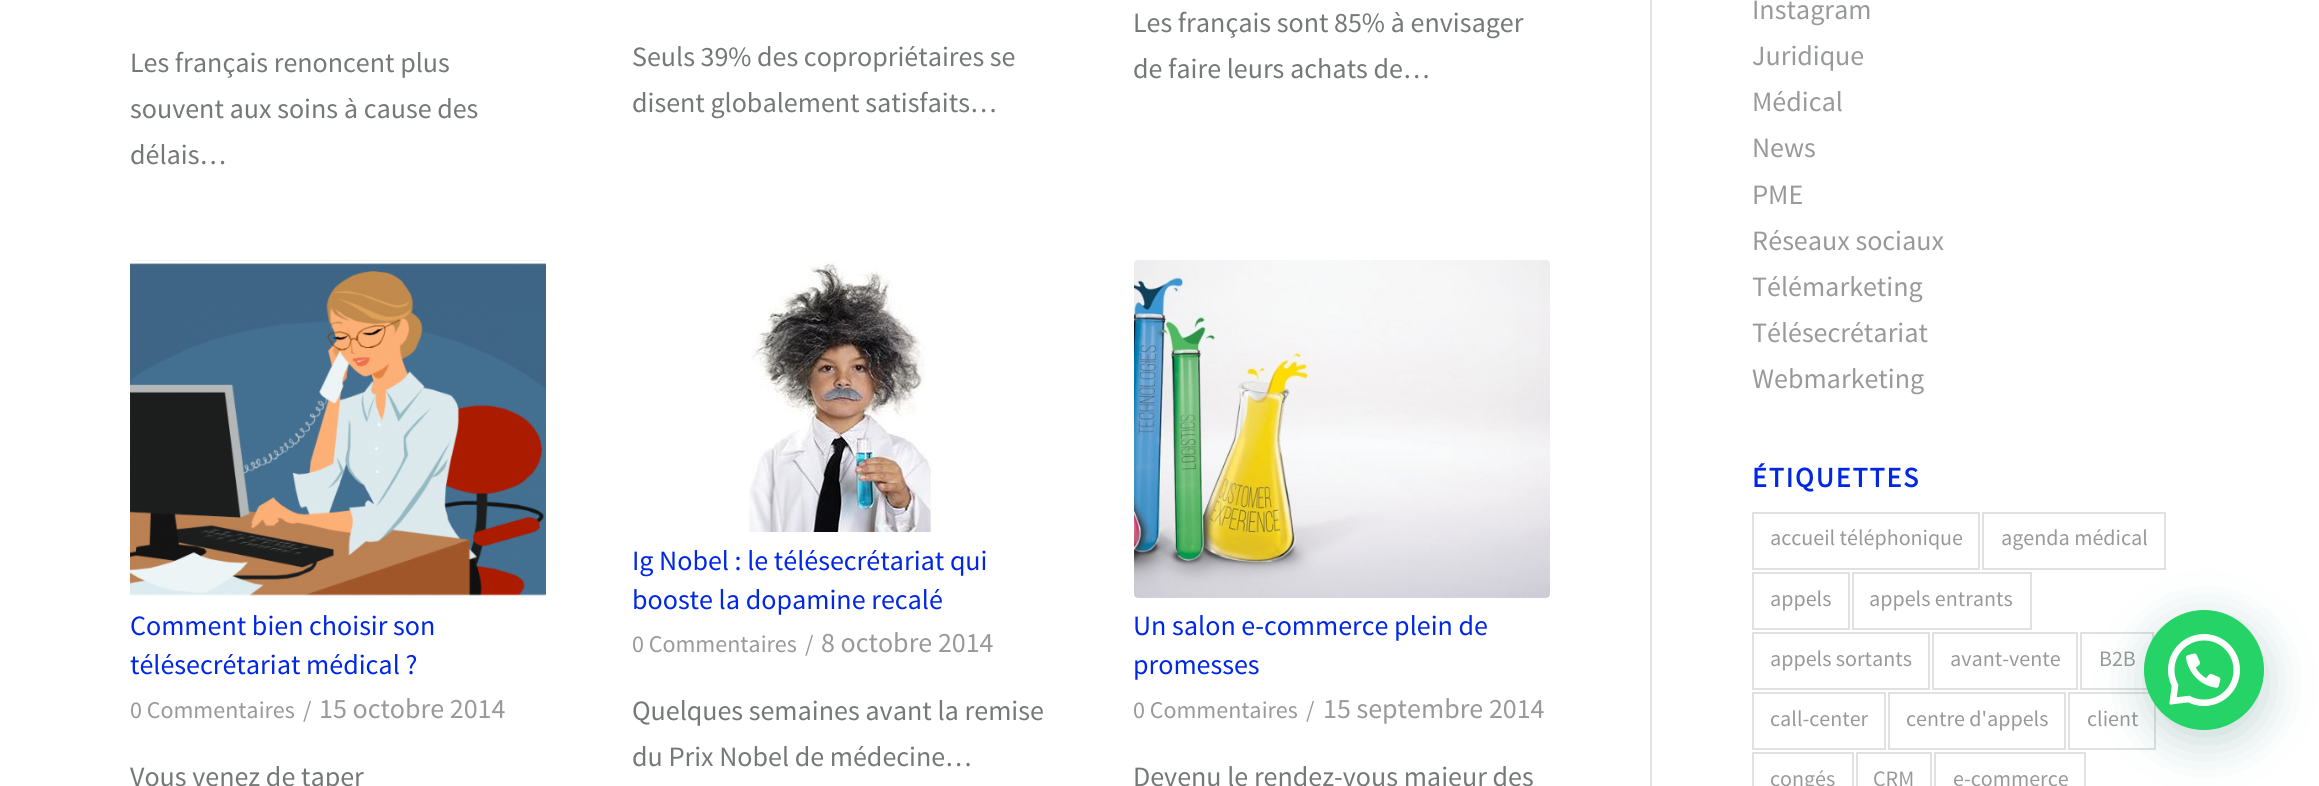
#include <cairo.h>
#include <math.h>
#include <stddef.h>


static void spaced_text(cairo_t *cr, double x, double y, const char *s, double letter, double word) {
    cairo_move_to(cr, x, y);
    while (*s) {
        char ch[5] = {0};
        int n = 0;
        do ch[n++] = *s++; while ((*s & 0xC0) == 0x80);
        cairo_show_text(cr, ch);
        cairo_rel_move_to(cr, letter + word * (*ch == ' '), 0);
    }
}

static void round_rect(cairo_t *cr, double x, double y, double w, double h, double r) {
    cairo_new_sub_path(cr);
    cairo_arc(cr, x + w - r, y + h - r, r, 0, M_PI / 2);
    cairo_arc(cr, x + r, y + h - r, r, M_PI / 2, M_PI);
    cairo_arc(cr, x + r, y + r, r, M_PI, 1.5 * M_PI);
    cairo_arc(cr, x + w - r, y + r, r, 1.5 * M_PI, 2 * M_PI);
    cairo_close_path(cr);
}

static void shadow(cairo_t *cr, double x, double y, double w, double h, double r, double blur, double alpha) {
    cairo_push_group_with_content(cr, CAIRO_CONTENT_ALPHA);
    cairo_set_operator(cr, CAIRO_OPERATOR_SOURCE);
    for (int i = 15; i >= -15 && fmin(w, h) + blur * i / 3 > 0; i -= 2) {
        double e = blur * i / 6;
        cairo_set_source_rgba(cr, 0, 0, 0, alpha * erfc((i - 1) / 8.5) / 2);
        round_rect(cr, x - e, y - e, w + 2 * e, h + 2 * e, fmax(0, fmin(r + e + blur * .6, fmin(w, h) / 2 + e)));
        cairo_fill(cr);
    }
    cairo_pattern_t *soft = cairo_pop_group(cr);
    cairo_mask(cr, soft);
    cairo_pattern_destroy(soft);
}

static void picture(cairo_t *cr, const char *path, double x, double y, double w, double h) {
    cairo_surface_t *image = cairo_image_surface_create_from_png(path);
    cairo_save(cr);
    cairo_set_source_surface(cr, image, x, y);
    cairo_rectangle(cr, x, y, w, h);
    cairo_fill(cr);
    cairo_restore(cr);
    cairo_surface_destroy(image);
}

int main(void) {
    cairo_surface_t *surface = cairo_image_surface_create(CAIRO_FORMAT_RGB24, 2319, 786);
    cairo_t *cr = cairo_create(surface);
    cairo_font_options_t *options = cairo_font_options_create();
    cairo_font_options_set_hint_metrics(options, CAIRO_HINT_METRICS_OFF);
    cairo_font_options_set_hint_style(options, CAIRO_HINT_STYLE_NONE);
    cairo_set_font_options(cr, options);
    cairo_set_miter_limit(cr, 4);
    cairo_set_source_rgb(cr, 1, 1, 1);
    cairo_paint(cr);
    cairo_set_source_rgb(cr, 0.882, 0.882, 0.882);
    cairo_rectangle(cr, 1650, 0, 2, 786);
    cairo_fill(cr);
    cairo_select_font_face(cr, "Source Sans Pro", CAIRO_FONT_SLANT_NORMAL, CAIRO_FONT_WEIGHT_NORMAL);
    cairo_set_font_size(cr, 28);
    cairo_set_source_rgb(cr, 0.455, 0.471, 0.467);
    cairo_move_to(cr, 130, 72);
    cairo_show_text(cr, "Les français renoncent plus");
    cairo_move_to(cr, 130, 118);
    cairo_show_text(cr, "souvent aux soins à cause des");
    cairo_move_to(cr, 130, 164);
    cairo_show_text(cr, "délais…");
    cairo_move_to(cr, 632, 66);
    cairo_show_text(cr, "Seuls 39% des copropriétaires se");
    cairo_move_to(cr, 632, 112);
    cairo_show_text(cr, "disent globalement satisfaits…");
    cairo_move_to(cr, 1133, 32);
    cairo_show_text(cr, "Les français sont 85% à envisager");
    cairo_move_to(cr, 1133, 78);
    cairo_show_text(cr, "de faire leurs achats de…");
    picture(cr, "img1.png", 130, 260, 416, 336);
    cairo_set_source_rgb(cr, 0, 0.153, 0.89);
    cairo_move_to(cr, 130, 635);
    cairo_show_text(cr, "Comment bien choisir son");
    cairo_move_to(cr, 130, 674);
    cairo_show_text(cr, "télésecrétariat médical ?");
    cairo_set_font_size(cr, 24);
    cairo_set_source_rgb(cr, 0.596, 0.604, 0.6);
    cairo_move_to(cr, 130, 718);
    cairo_show_text(cr, "0 Commentaires");
    cairo_move_to(cr, 303, 718);
    cairo_show_text(cr, "/");
    cairo_set_font_size(cr, 28);
    cairo_move_to(cr, 319, 718);
    cairo_show_text(cr, "15 octobre 2014");
    cairo_set_source_rgb(cr, 0.455, 0.471, 0.467);
    cairo_move_to(cr, 130, 786);
    cairo_show_text(cr, "Vous venez de taper");
    picture(cr, "img2.png", 749, 260, 184, 272);
    cairo_set_source_rgb(cr, 0, 0.153, 0.89);
    cairo_move_to(cr, 632, 570);
    cairo_show_text(cr, "Ig Nobel : le télésecrétariat qui");
    cairo_move_to(cr, 632, 609);
    cairo_show_text(cr, "booste la dopamine recalé");
    cairo_set_font_size(cr, 24);
    cairo_set_source_rgb(cr, 0.596, 0.604, 0.6);
    cairo_move_to(cr, 632, 652);
    cairo_show_text(cr, "0 Commentaires");
    cairo_move_to(cr, 805, 652);
    cairo_show_text(cr, "/");
    cairo_set_font_size(cr, 28);
    cairo_move_to(cr, 821, 652);
    cairo_show_text(cr, "8 octobre 2014");
    cairo_set_source_rgb(cr, 0.455, 0.471, 0.467);
    cairo_move_to(cr, 632, 720);
    cairo_show_text(cr, "Quelques semaines avant la remise");
    cairo_move_to(cr, 632, 766);
    cairo_show_text(cr, "du Prix Nobel de médecine…");
    picture(cr, "img3.png", 1134, 260, 416, 338);
    cairo_set_source_rgb(cr, 0, 0.153, 0.89);
    cairo_move_to(cr, 1133, 635);
    cairo_show_text(cr, "Un salon e-commerce plein de");
    cairo_move_to(cr, 1133, 674);
    cairo_show_text(cr, "promesses");
    cairo_set_font_size(cr, 24);
    cairo_set_source_rgb(cr, 0.596, 0.604, 0.6);
    cairo_move_to(cr, 1133, 718);
    cairo_show_text(cr, "0 Commentaires");
    cairo_move_to(cr, 1306, 718);
    cairo_show_text(cr, "/");
    cairo_set_font_size(cr, 28);
    cairo_move_to(cr, 1323, 718);
    cairo_show_text(cr, "15 septembre 2014");
    cairo_set_source_rgb(cr, 0.455, 0.471, 0.467);
    cairo_move_to(cr, 1133, 786);
    cairo_show_text(cr, "Devenu le rendez-vous majeur des");
    cairo_set_source_rgb(cr, 0.596, 0.604, 0.6);
    cairo_move_to(cr, 1752, 19);
    cairo_show_text(cr, "Instagram");
    cairo_move_to(cr, 1752, 65);
    cairo_show_text(cr, "Juridique");
    cairo_move_to(cr, 1752, 111);
    cairo_show_text(cr, "Médical");
    cairo_move_to(cr, 1752, 157);
    cairo_show_text(cr, "News");
    cairo_move_to(cr, 1752, 204);
    cairo_show_text(cr, "PME");
    cairo_move_to(cr, 1752, 250);
    cairo_show_text(cr, "Réseaux sociaux");
    cairo_move_to(cr, 1752, 296);
    cairo_show_text(cr, "Télémarketing");
    cairo_move_to(cr, 1752, 342);
    cairo_show_text(cr, "Télésecrétariat");
    cairo_move_to(cr, 1752, 388);
    cairo_show_text(cr, "Webmarketing");
    cairo_select_font_face(cr, "Source Sans Pro", CAIRO_FONT_SLANT_NORMAL, CAIRO_FONT_WEIGHT_BOLD);
    cairo_set_source_rgb(cr, 0, 0.153, 0.89);
    spaced_text(cr, 1752, 487, "ÉTIQUETTES", 2, 0);
    cairo_rectangle(cr, 1753, 513, 226, 56);
    cairo_set_source_rgb(cr, 0.882, 0.882, 0.882);
    cairo_stroke(cr);
    cairo_select_font_face(cr, "Source Sans Pro", CAIRO_FONT_SLANT_NORMAL, CAIRO_FONT_WEIGHT_NORMAL);
    cairo_set_font_size(cr, 22);
    cairo_set_source_rgb(cr, 0.596, 0.604, 0.6);
    cairo_move_to(cr, 1770, 545);
    cairo_show_text(cr, "accueil téléphonique");
    cairo_rectangle(cr, 1983, 513, 182, 56);
    cairo_set_source_rgb(cr, 0.882, 0.882, 0.882);
    cairo_stroke(cr);
    cairo_set_source_rgb(cr, 0.596, 0.604, 0.6);
    cairo_move_to(cr, 2001, 545);
    cairo_show_text(cr, "agenda médical");
    cairo_rectangle(cr, 1753, 573, 96, 56);
    cairo_set_source_rgb(cr, 0.882, 0.882, 0.882);
    cairo_stroke(cr);
    cairo_set_source_rgb(cr, 0.596, 0.604, 0.6);
    cairo_move_to(cr, 1770, 606);
    cairo_show_text(cr, "appels");
    cairo_rectangle(cr, 1853, 573, 178, 56);
    cairo_set_source_rgb(cr, 0.882, 0.882, 0.882);
    cairo_stroke(cr);
    cairo_set_source_rgb(cr, 0.596, 0.604, 0.6);
    cairo_move_to(cr, 1869, 606);
    cairo_show_text(cr, "appels entrants");
    cairo_rectangle(cr, 1753, 633, 176, 56);
    cairo_set_source_rgb(cr, 0.882, 0.882, 0.882);
    cairo_stroke(cr);
    cairo_set_source_rgb(cr, 0.596, 0.604, 0.6);
    cairo_move_to(cr, 1770, 666);
    cairo_show_text(cr, "appels sortants");
    cairo_rectangle(cr, 1933, 633, 144, 56);
    cairo_set_source_rgb(cr, 0.882, 0.882, 0.882);
    cairo_stroke(cr);
    cairo_set_source_rgb(cr, 0.596, 0.604, 0.6);
    cairo_move_to(cr, 1950, 666);
    cairo_show_text(cr, "avant-vente");
    cairo_rectangle(cr, 2081, 633, 72, 56);
    cairo_set_source_rgb(cr, 0.882, 0.882, 0.882);
    cairo_stroke(cr);
    cairo_set_source_rgb(cr, 0.596, 0.604, 0.6);
    cairo_move_to(cr, 2099, 666);
    cairo_show_text(cr, "B2B");
    cairo_rectangle(cr, 1753, 693, 132, 56);
    cairo_set_source_rgb(cr, 0.882, 0.882, 0.882);
    cairo_stroke(cr);
    cairo_set_source_rgb(cr, 0.596, 0.604, 0.6);
    cairo_move_to(cr, 1770, 726);
    cairo_show_text(cr, "call-center");
    cairo_rectangle(cr, 1889, 693, 176, 56);
    cairo_set_source_rgb(cr, 0.882, 0.882, 0.882);
    cairo_stroke(cr);
    cairo_set_source_rgb(cr, 0.596, 0.604, 0.6);
    cairo_move_to(cr, 1906, 726);
    cairo_show_text(cr, "centre d'appels");
    cairo_rectangle(cr, 2069, 693, 86, 56);
    cairo_set_source_rgb(cr, 0.882, 0.882, 0.882);
    cairo_stroke(cr);
    cairo_set_source_rgb(cr, 0.596, 0.604, 0.6);
    cairo_move_to(cr, 2087, 726);
    cairo_show_text(cr, "client");
    cairo_rectangle(cr, 1753, 753, 100, 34);
    cairo_set_source_rgb(cr, 0.882, 0.882, 0.882);
    cairo_stroke(cr);
    cairo_set_source_rgb(cr, 0.596, 0.604, 0.6);
    cairo_move_to(cr, 1770, 786);
    cairo_show_text(cr, "congés");
    cairo_rectangle(cr, 1857, 753, 74, 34);
    cairo_set_source_rgb(cr, 0.882, 0.882, 0.882);
    cairo_stroke(cr);
    cairo_set_source_rgb(cr, 0.596, 0.604, 0.6);
    cairo_move_to(cr, 1873, 786);
    cairo_show_text(cr, "CRM");
    cairo_rectangle(cr, 1935, 753, 150, 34);
    cairo_set_source_rgb(cr, 0.882, 0.882, 0.882);
    cairo_stroke(cr);
    cairo_set_source_rgb(cr, 0.596, 0.604, 0.6);
    cairo_move_to(cr, 1953, 786);
    cairo_show_text(cr, "e-commerce");
    cairo_set_source_rgb(cr, 0.027, 0.369, 0.329);
    shadow(cr, 2146, 622, 120, 120, 60, 24, 0.24);
    cairo_set_source_rgb(cr, 0.145, 0.827, 0.4);
    cairo_arc(cr, 2204, 670, 60, 0, 2 * M_PI);
    cairo_fill(cr);
    picture(cr, "img4.png", 2168, 634, 72, 72);
    cairo_surface_write_to_png(surface, "page.png");
    cairo_font_options_destroy(options);
    cairo_destroy(cr);
    cairo_surface_destroy(surface);
    return 0;
}
